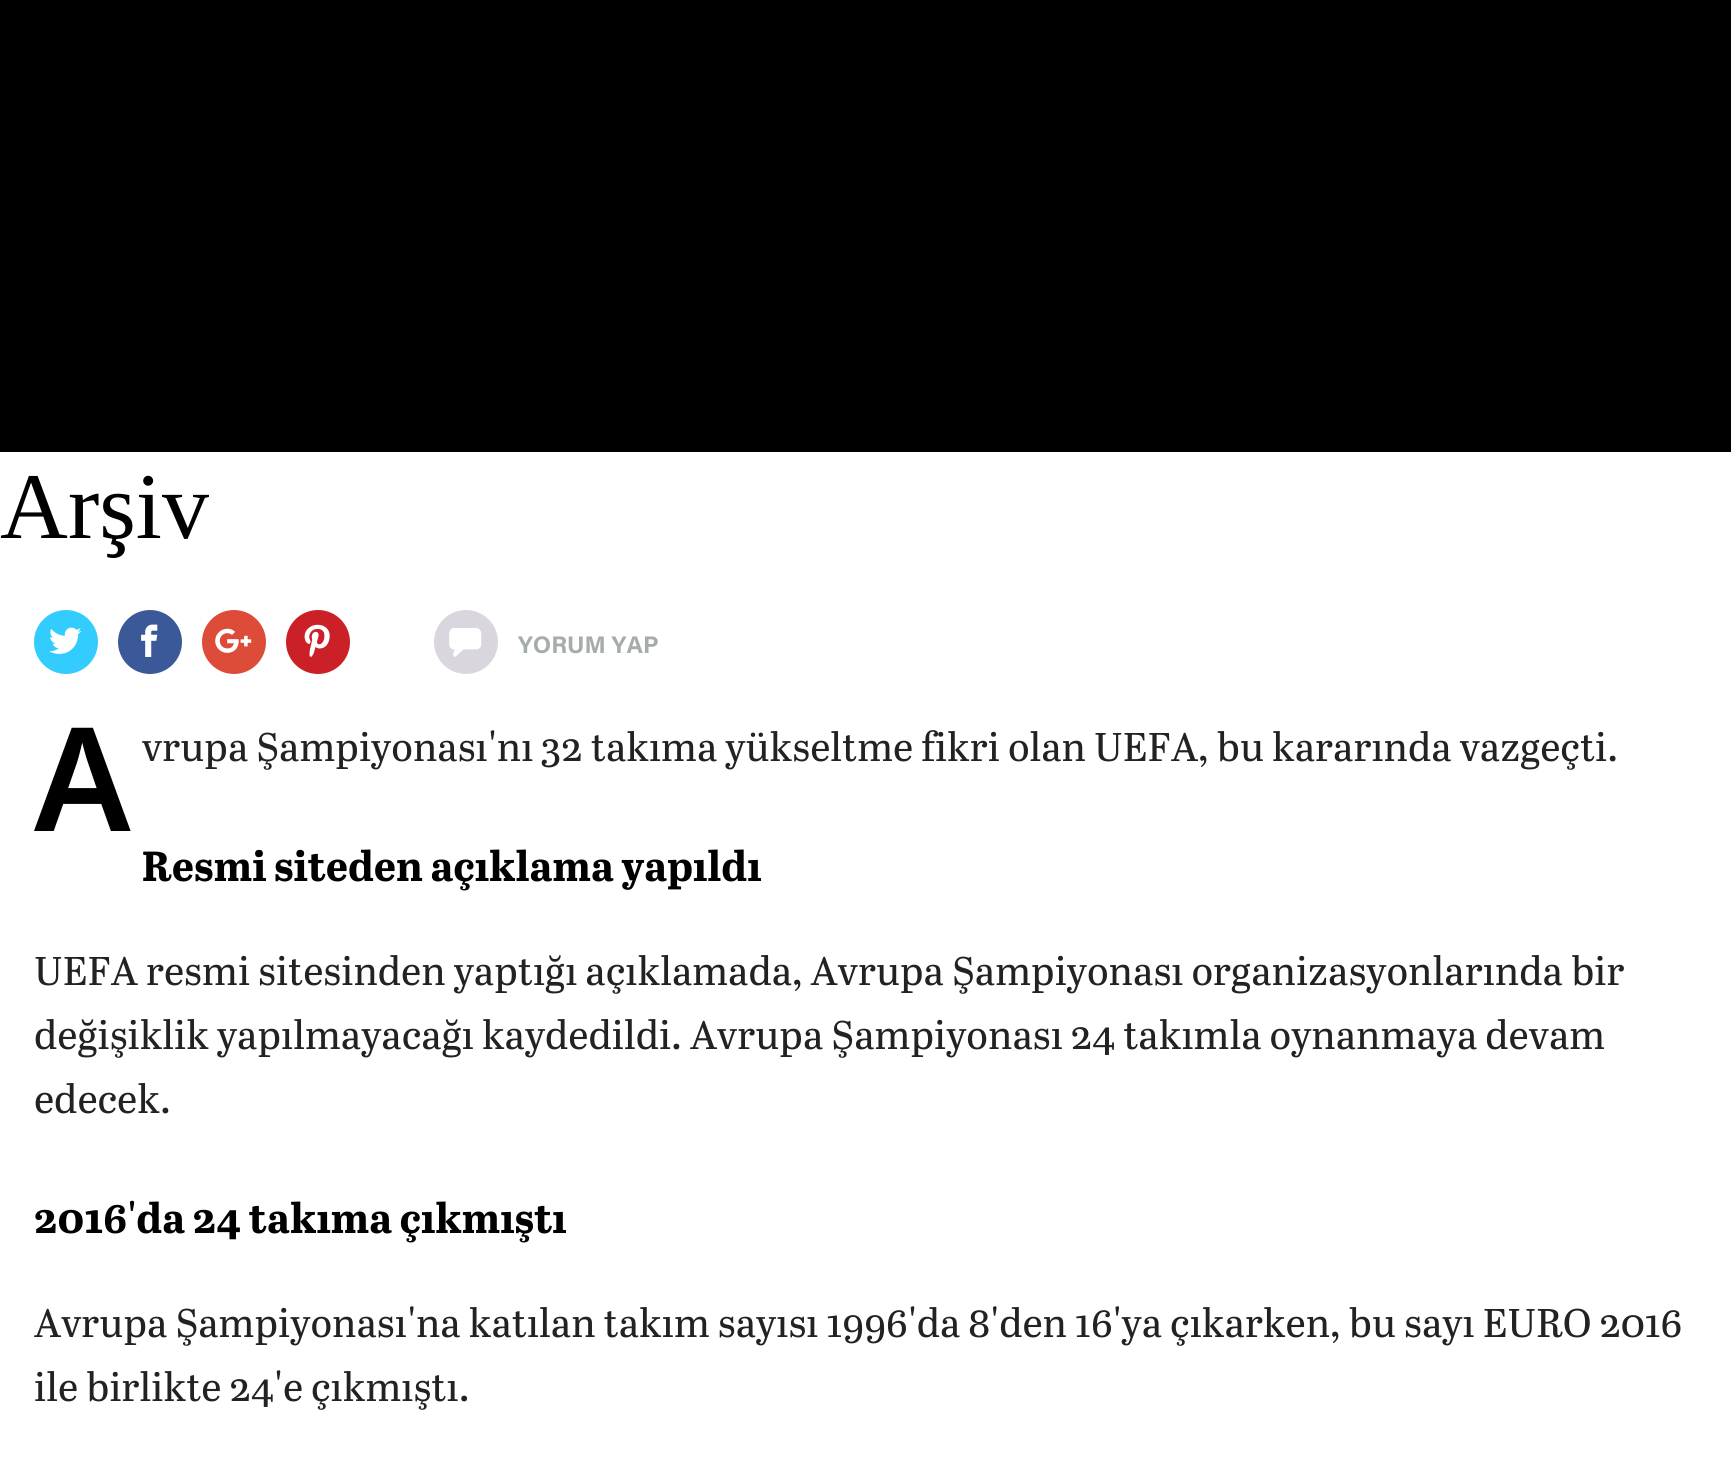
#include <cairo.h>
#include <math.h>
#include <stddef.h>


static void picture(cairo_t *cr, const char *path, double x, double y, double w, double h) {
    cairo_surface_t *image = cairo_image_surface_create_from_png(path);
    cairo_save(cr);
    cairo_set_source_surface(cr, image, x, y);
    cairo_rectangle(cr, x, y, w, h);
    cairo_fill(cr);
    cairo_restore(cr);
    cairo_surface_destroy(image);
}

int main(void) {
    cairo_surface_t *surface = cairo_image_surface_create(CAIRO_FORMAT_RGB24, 1731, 1467);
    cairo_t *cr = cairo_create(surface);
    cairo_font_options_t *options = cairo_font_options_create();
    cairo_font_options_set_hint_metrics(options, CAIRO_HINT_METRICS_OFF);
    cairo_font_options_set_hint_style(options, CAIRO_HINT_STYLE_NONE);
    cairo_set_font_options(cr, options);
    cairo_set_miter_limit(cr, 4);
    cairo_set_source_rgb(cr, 1, 1, 1);
    cairo_paint(cr);
    cairo_set_source_rgb(cr, 0, 0, 0);
    cairo_rectangle(cr, 0, 0, 1731, 452);
    cairo_fill(cr);
    cairo_select_font_face(cr, "Liberation Serif", CAIRO_FONT_SLANT_NORMAL, CAIRO_FONT_WEIGHT_NORMAL);
    cairo_set_font_size(cr, 94);
    cairo_move_to(cr, 0, 538);
    cairo_show_text(cr, "Arşiv");
    cairo_set_source_rgb(cr, 0.2, 0.8, 1);
    cairo_new_path(cr);
    cairo_arc(cr, 66, 642, 32, 0, 2 * M_PI);
    cairo_fill(cr);
    picture(cr, "img1.png", 49, 627, 33, 27);
    cairo_set_source_rgb(cr, 0.231, 0.349, 0.596);
    cairo_arc(cr, 150, 642, 32, 0, 2 * M_PI);
    cairo_fill(cr);
    picture(cr, "img2.png", 141, 624, 17, 33);
    cairo_set_source_rgb(cr, 0.867, 0.294, 0.224);
    cairo_arc(cr, 234, 642, 32, 0, 2 * M_PI);
    cairo_fill(cr);
    picture(cr, "img3.png", 215, 628, 37, 25);
    cairo_set_source_rgb(cr, 0.796, 0.125, 0.153);
    cairo_arc(cr, 318, 642, 32, 0, 2 * M_PI);
    cairo_fill(cr);
    picture(cr, "img4.png", 304, 624, 26, 33);
    cairo_set_source_rgb(cr, 0.855, 0.839, 0.871);
    cairo_arc(cr, 466, 642, 32, 0, 2 * M_PI);
    cairo_fill(cr);
    picture(cr, "img5.png", 449, 628, 33, 29);
    cairo_select_font_face(cr, "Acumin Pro", CAIRO_FONT_SLANT_NORMAL, CAIRO_FONT_WEIGHT_BOLD);
    cairo_set_font_size(cr, 24);
    cairo_set_source_rgb(cr, 0.647, 0.678, 0.667);
    cairo_move_to(cr, 518, 653);
    cairo_show_text(cr, "YORUM YAP");
    cairo_select_font_face(cr, "Noto Sans SemiBold", CAIRO_FONT_SLANT_NORMAL, CAIRO_FONT_WEIGHT_NORMAL);
    cairo_set_font_size(cr, 144);
    cairo_set_source_rgb(cr, 0, 0, 0);
    cairo_move_to(cr, 34, 831);
    cairo_show_text(cr, "A");
    cairo_select_font_face(cr, "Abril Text", CAIRO_FONT_SLANT_NORMAL, CAIRO_FONT_WEIGHT_NORMAL);
    cairo_set_font_size(cr, 40);
    cairo_set_source_rgb(cr, 0.133, 0.133, 0.133);
    cairo_move_to(cr, 142, 761);
    cairo_show_text(cr, "vrupa Şampiyonası'nı 32 takıma yükseltme fikri olan UEFA, bu kararında vazgeçti.");
    cairo_select_font_face(cr, "Abril Text", CAIRO_FONT_SLANT_NORMAL, CAIRO_FONT_WEIGHT_BOLD);
    cairo_set_font_size(cr, 42);
    cairo_set_source_rgb(cr, 0, 0, 0);
    cairo_move_to(cr, 142, 881);
    cairo_show_text(cr, "Resmi siteden açıklama yapıldı");
    cairo_select_font_face(cr, "Abril Text", CAIRO_FONT_SLANT_NORMAL, CAIRO_FONT_WEIGHT_NORMAL);
    cairo_set_font_size(cr, 40);
    cairo_set_source_rgb(cr, 0.133, 0.133, 0.133);
    cairo_move_to(cr, 34, 985);
    cairo_show_text(cr, "UEFA resmi sitesinden yaptığı açıklamada, Avrupa Şampiyonası organizasyonlarında bir");
    cairo_move_to(cr, 34, 1049);
    cairo_show_text(cr, "değişiklik yapılmayacağı kaydedildi. Avrupa Şampiyonası 24 takımla oynanmaya devam");
    cairo_move_to(cr, 34, 1113);
    cairo_show_text(cr, "edecek.");
    cairo_select_font_face(cr, "Abril Text", CAIRO_FONT_SLANT_NORMAL, CAIRO_FONT_WEIGHT_BOLD);
    cairo_set_font_size(cr, 42);
    cairo_set_source_rgb(cr, 0, 0, 0);
    cairo_move_to(cr, 34, 1233);
    cairo_show_text(cr, "2016'da 24 takıma çıkmıştı");
    cairo_select_font_face(cr, "Abril Text", CAIRO_FONT_SLANT_NORMAL, CAIRO_FONT_WEIGHT_NORMAL);
    cairo_set_font_size(cr, 40);
    cairo_set_source_rgb(cr, 0.133, 0.133, 0.133);
    cairo_move_to(cr, 34, 1337);
    cairo_show_text(cr, "Avrupa Şampiyonası'na katılan takım sayısı 1996'da 8'den 16'ya çıkarken, bu sayı EURO 2016");
    cairo_move_to(cr, 34, 1401);
    cairo_show_text(cr, "ile birlikte 24'e çıkmıştı.");
    cairo_surface_write_to_png(surface, "page.png");
    cairo_font_options_destroy(options);
    cairo_destroy(cr);
    cairo_surface_destroy(surface);
    return 0;
}
